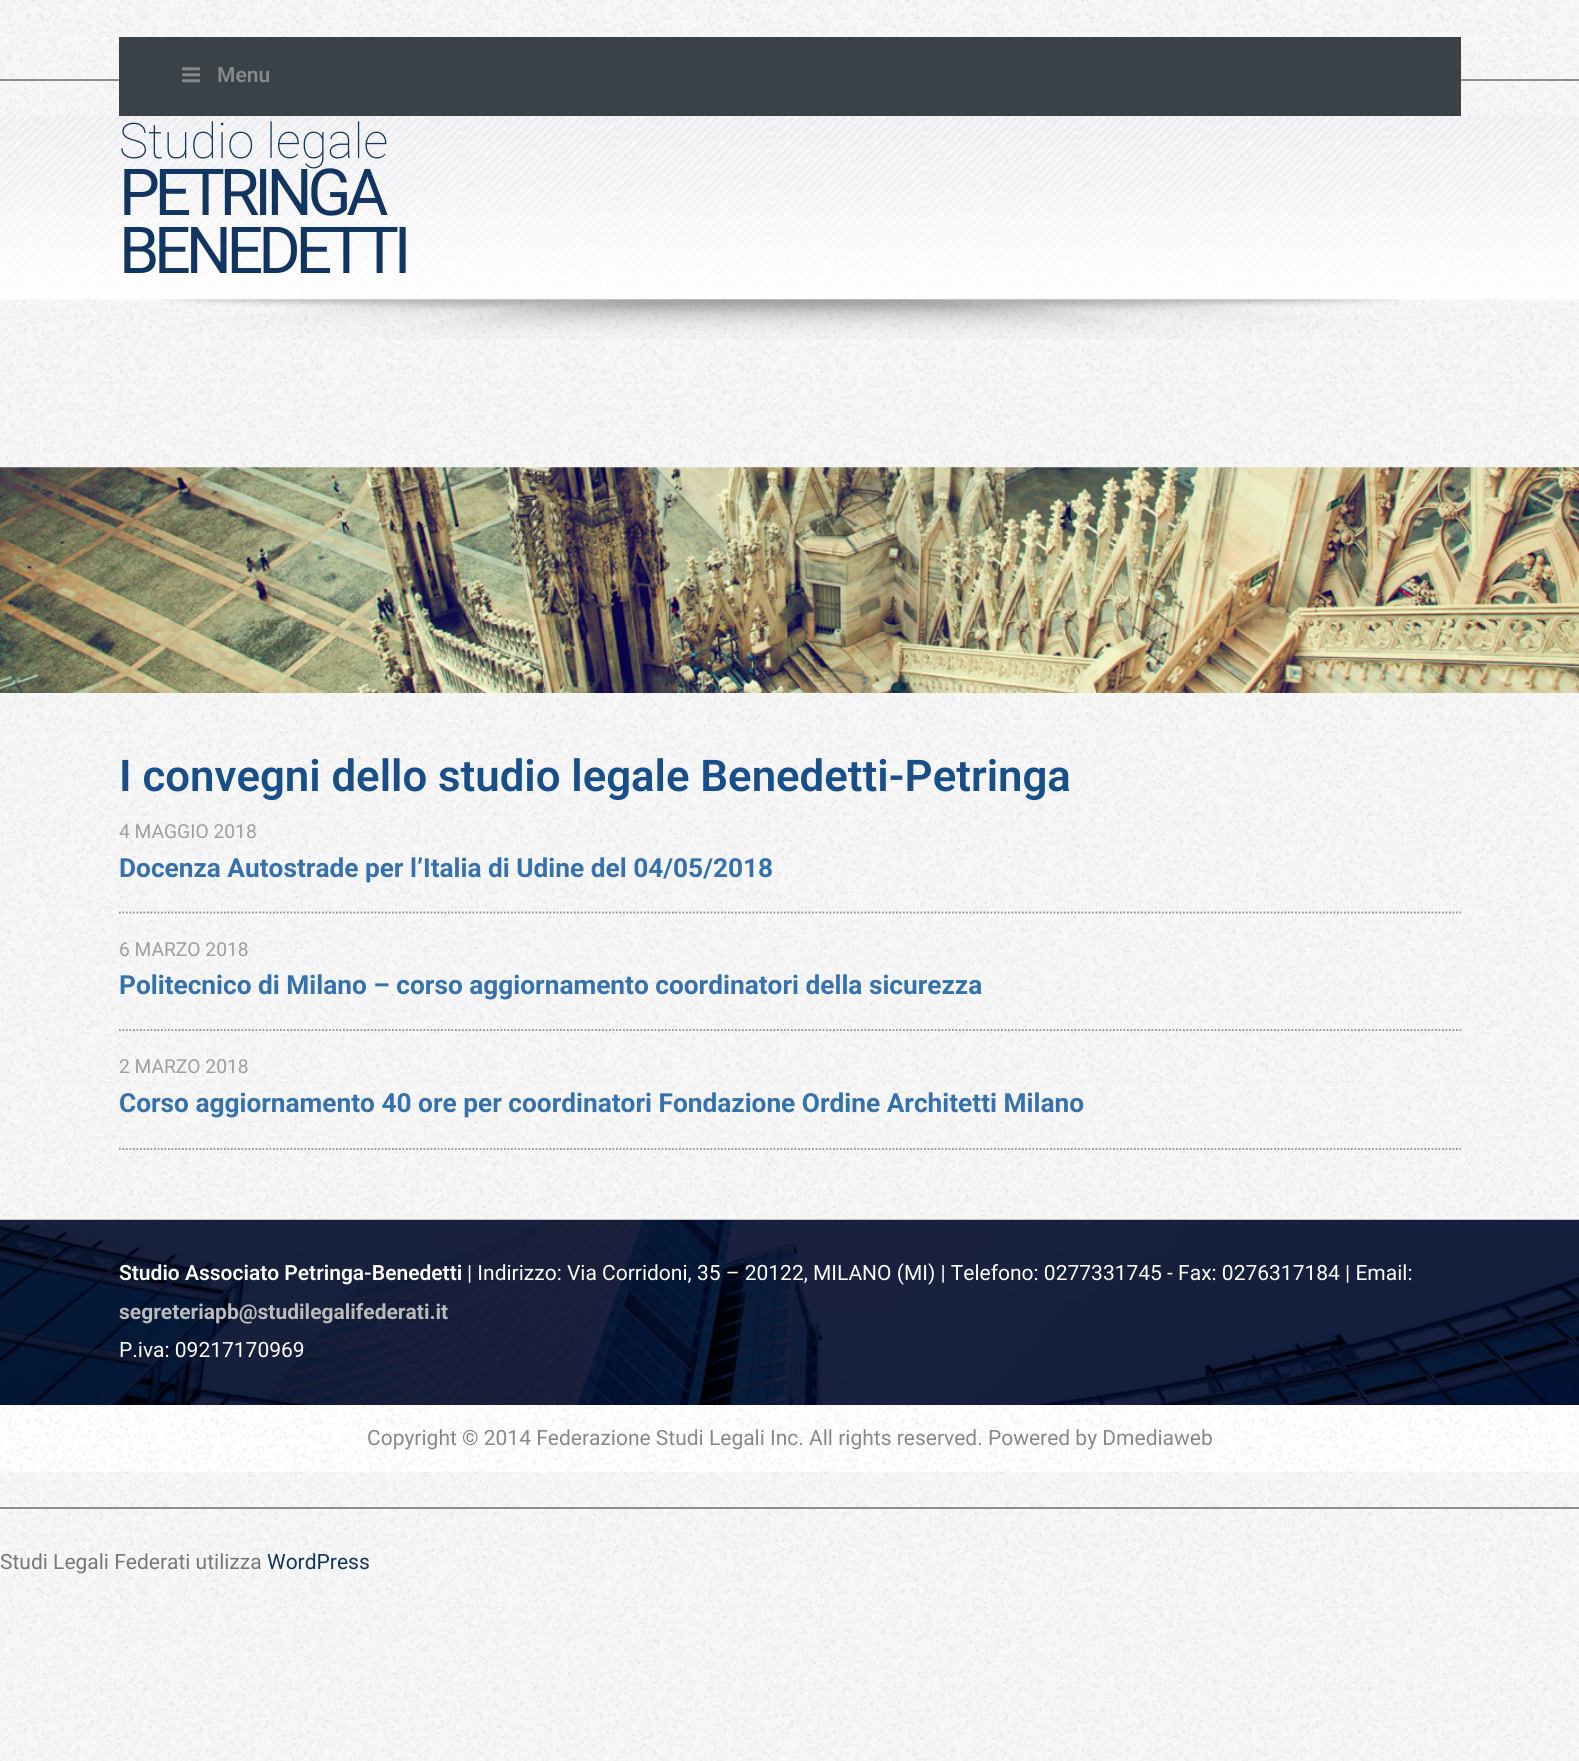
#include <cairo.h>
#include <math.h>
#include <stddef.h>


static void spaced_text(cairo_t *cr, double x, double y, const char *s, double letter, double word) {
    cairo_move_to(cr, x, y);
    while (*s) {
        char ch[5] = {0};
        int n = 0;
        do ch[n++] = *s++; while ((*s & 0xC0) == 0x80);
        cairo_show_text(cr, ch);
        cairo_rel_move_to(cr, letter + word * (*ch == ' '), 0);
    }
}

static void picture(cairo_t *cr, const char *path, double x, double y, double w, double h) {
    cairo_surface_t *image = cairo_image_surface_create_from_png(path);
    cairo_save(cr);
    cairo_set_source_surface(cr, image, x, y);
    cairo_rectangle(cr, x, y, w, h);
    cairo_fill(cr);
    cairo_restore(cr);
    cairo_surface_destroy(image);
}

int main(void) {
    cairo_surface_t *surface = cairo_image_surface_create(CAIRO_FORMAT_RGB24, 1579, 1761);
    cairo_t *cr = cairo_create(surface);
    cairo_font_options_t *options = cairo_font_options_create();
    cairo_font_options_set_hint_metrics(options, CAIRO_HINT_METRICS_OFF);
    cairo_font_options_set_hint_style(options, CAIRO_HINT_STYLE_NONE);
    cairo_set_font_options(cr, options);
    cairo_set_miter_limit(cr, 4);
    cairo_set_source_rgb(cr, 0.969, 0.969, 0.969);
    cairo_paint(cr);
    picture(cr, "img1.png", 0, 0, 1579, 1761);
    picture(cr, "img2.png", 0, 115, 1579, 185);
    cairo_set_source_rgb(cr, 0.557, 0.557, 0.557);
    cairo_rectangle(cr, 0, 79, 1579, 2);
    cairo_fill(cr);
    cairo_set_source_rgb(cr, 0.227, 0.255, 0.278);
    cairo_rectangle(cr, 119, 37, 1342, 79);
    cairo_fill(cr);
    picture(cr, "img3.png", 182, 67, 18, 16);
    cairo_select_font_face(cr, "Roboto SemiBold", CAIRO_FONT_SLANT_NORMAL, CAIRO_FONT_WEIGHT_NORMAL);
    cairo_set_font_size(cr, 21);
    cairo_set_source_rgb(cr, 0.533, 0.533, 0.533);
    cairo_move_to(cr, 217, 82);
    cairo_show_text(cr, "Menu");
    cairo_select_font_face(cr, "Roboto Thin", CAIRO_FONT_SLANT_NORMAL, CAIRO_FONT_WEIGHT_NORMAL);
    cairo_set_font_size(cr, 49);
    cairo_set_source_rgb(cr, 0.067, 0.208, 0.376);
    cairo_move_to(cr, 119, 158);
    cairo_show_text(cr, "Studio legale");
    cairo_select_font_face(cr, "Roboto", CAIRO_FONT_SLANT_NORMAL, CAIRO_FONT_WEIGHT_NORMAL);
    cairo_set_font_size(cr, 64.75);
    spaced_text(cr, 119, 215, "PETRINGA", -5.25, 0);
    spaced_text(cr, 119, 273, "BENEDETTI", -5.25, 0);
    picture(cr, "img4.png", 165, 299, 1235, 40);
    picture(cr, "img5.png", 0, 467, 1579, 226);
    cairo_select_font_face(cr, "Roboto SemiBold", CAIRO_FONT_SLANT_NORMAL, CAIRO_FONT_WEIGHT_NORMAL);
    cairo_set_font_size(cr, 43.75);
    cairo_set_source_rgb(cr, 0.094, 0.31, 0.537);
    cairo_move_to(cr, 119, 791);
    cairo_show_text(cr, "I convegni dello studio legale Benedetti-Petringa");
    cairo_new_path(cr);
    cairo_move_to(cr, 119, 912.5);
    cairo_line_to(cr, 1461, 912.5);
    cairo_set_source_rgb(cr, 0.58, 0.573, 0.522);
    cairo_set_line_width(cr, 1.8);
    cairo_set_dash(cr, (double[]){1.75, 1.75}, 2, 0);
    cairo_stroke(cr);
    cairo_select_font_face(cr, "Roboto", CAIRO_FONT_SLANT_NORMAL, CAIRO_FONT_WEIGHT_NORMAL);
    cairo_set_font_size(cr, 19.25);
    cairo_set_source_rgb(cr, 0.62, 0.62, 0.62);
    cairo_move_to(cr, 119, 838);
    cairo_show_text(cr, "4 MAGGIO 2018");
    cairo_select_font_face(cr, "Roboto", CAIRO_FONT_SLANT_NORMAL, CAIRO_FONT_WEIGHT_BOLD);
    cairo_set_font_size(cr, 26.25);
    cairo_set_source_rgb(cr, 0.208, 0.443, 0.678);
    cairo_move_to(cr, 119, 877);
    cairo_show_text(cr, "Docenza Autostrade per l’Italia di Udine del 04/05/2018");
    cairo_new_path(cr);
    cairo_move_to(cr, 119, 1030);
    cairo_line_to(cr, 1461, 1030);
    cairo_set_source_rgb(cr, 0.58, 0.573, 0.522);
    cairo_stroke(cr);
    cairo_select_font_face(cr, "Roboto", CAIRO_FONT_SLANT_NORMAL, CAIRO_FONT_WEIGHT_NORMAL);
    cairo_set_font_size(cr, 19.25);
    cairo_set_source_rgb(cr, 0.62, 0.62, 0.62);
    cairo_move_to(cr, 119, 956);
    cairo_show_text(cr, "6 MARZO 2018");
    cairo_select_font_face(cr, "Roboto", CAIRO_FONT_SLANT_NORMAL, CAIRO_FONT_WEIGHT_BOLD);
    cairo_set_font_size(cr, 26.25);
    cairo_set_source_rgb(cr, 0.208, 0.443, 0.678);
    cairo_move_to(cr, 119, 994);
    cairo_show_text(cr, "Politecnico di Milano – corso aggiornamento coordinatori della sicurezza");
    cairo_new_path(cr);
    cairo_move_to(cr, 119, 1149);
    cairo_line_to(cr, 1461, 1149);
    cairo_set_source_rgb(cr, 0.58, 0.573, 0.522);
    cairo_stroke(cr);
    cairo_select_font_face(cr, "Roboto", CAIRO_FONT_SLANT_NORMAL, CAIRO_FONT_WEIGHT_NORMAL);
    cairo_set_font_size(cr, 19.25);
    cairo_set_source_rgb(cr, 0.62, 0.62, 0.62);
    cairo_move_to(cr, 119, 1073);
    cairo_show_text(cr, "2 MARZO 2018");
    cairo_select_font_face(cr, "Roboto", CAIRO_FONT_SLANT_NORMAL, CAIRO_FONT_WEIGHT_BOLD);
    cairo_set_font_size(cr, 26.25);
    cairo_set_source_rgb(cr, 0.208, 0.443, 0.678);
    cairo_move_to(cr, 119, 1112);
    cairo_show_text(cr, "Corso aggiornamento 40 ore per coordinatori Fondazione Ordine Architetti Milano");
    picture(cr, "img6.png", 0, 1219, 1579, 186);
    cairo_select_font_face(cr, "Roboto SemiBold", CAIRO_FONT_SLANT_NORMAL, CAIRO_FONT_WEIGHT_NORMAL);
    cairo_set_font_size(cr, 21);
    cairo_set_source_rgb(cr, 1, 1, 1);
    cairo_move_to(cr, 119, 1280);
    cairo_show_text(cr, "Studio Associato Petringa-Benedetti");
    cairo_select_font_face(cr, "Roboto", CAIRO_FONT_SLANT_NORMAL, CAIRO_FONT_WEIGHT_NORMAL);
    cairo_move_to(cr, 467, 1280);
    cairo_show_text(cr, "| Indirizzo: Via Corridoni, 35 – 20122, MILANO (MI) | Telefono: 0277331745 - Fax: 0276317184 | Email:");
    cairo_select_font_face(cr, "Roboto", CAIRO_FONT_SLANT_NORMAL, CAIRO_FONT_WEIGHT_BOLD);
    cairo_set_source_rgb(cr, 0.733, 0.733, 0.733);
    cairo_move_to(cr, 119, 1319);
    cairo_show_text(cr, "segreteriapb@studilegalifederati.it");
    cairo_select_font_face(cr, "Roboto", CAIRO_FONT_SLANT_NORMAL, CAIRO_FONT_WEIGHT_NORMAL);
    cairo_set_source_rgb(cr, 1, 1, 1);
    cairo_move_to(cr, 119, 1357);
    cairo_show_text(cr, "P.iva: 09217170969");
    cairo_rectangle(cr, 0, 1405, 1579, 67);
    cairo_fill(cr);
    picture(cr, "img7.png", 0, 1405, 1579, 67);
    cairo_set_source_rgb(cr, 0.533, 0.533, 0.533);
    cairo_move_to(cr, 367, 1445);
    cairo_show_text(cr, "Copyright © 2014 Federazione Studi Legali Inc. All rights reserved. Powered by Dmediaweb");
    cairo_set_source_rgb(cr, 0.557, 0.557, 0.557);
    cairo_rectangle(cr, 0, 1507, 1579, 2);
    cairo_fill(cr);
    cairo_set_source_rgb(cr, 0.467, 0.467, 0.467);
    cairo_move_to(cr, 0, 1569);
    cairo_show_text(cr, "Studi Legali Federati utilizza");
    cairo_set_source_rgb(cr, 0.067, 0.208, 0.376);
    cairo_move_to(cr, 267, 1569);
    cairo_show_text(cr, "WordPress");
    cairo_surface_write_to_png(surface, "page.png");
    cairo_font_options_destroy(options);
    cairo_destroy(cr);
    cairo_surface_destroy(surface);
    return 0;
}
